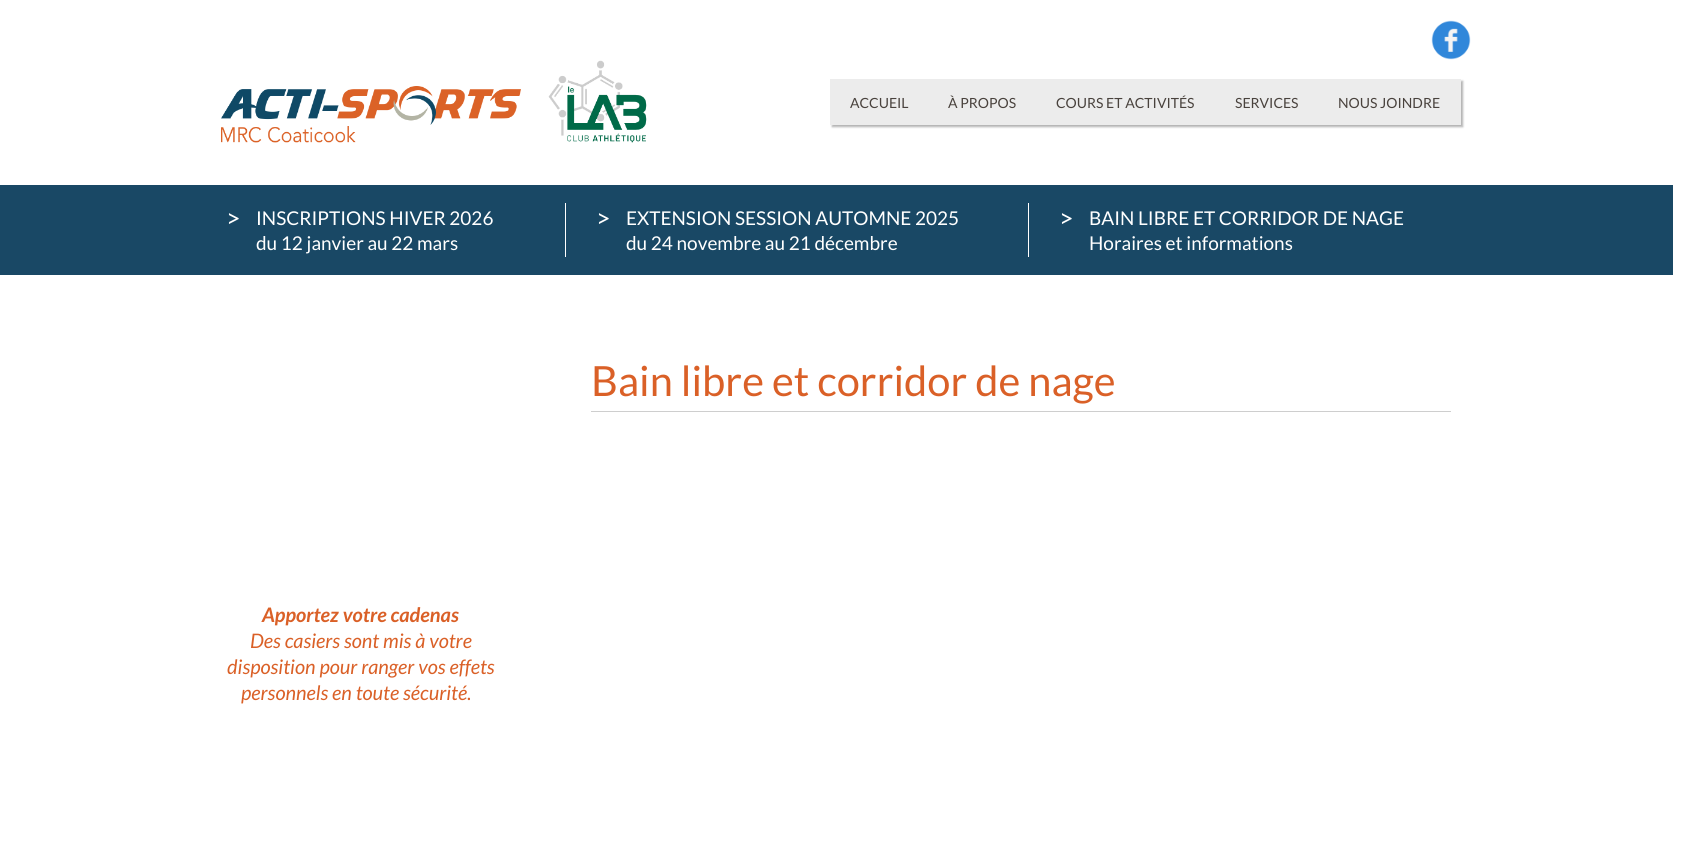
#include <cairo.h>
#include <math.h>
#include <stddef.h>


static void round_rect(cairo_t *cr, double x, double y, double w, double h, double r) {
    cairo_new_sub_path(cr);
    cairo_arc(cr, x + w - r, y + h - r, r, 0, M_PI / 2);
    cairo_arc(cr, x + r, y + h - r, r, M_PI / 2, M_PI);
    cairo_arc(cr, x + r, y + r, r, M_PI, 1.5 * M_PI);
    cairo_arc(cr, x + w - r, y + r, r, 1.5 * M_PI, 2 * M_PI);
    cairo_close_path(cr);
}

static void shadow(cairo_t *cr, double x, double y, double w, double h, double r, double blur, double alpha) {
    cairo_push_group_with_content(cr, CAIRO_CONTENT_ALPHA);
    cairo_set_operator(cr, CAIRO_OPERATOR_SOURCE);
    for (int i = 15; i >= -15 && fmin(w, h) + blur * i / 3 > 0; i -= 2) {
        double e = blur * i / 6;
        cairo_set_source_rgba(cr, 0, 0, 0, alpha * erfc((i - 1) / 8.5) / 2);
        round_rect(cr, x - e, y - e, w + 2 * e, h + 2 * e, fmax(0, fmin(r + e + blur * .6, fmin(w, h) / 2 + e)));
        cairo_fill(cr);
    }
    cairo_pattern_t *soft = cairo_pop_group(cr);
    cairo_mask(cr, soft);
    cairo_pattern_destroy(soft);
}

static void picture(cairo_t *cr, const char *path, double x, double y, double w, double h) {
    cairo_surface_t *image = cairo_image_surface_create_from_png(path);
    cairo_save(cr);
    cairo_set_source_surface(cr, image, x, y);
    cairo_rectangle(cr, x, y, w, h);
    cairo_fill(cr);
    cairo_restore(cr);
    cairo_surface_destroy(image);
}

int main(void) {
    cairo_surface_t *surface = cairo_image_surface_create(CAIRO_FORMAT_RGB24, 1681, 857);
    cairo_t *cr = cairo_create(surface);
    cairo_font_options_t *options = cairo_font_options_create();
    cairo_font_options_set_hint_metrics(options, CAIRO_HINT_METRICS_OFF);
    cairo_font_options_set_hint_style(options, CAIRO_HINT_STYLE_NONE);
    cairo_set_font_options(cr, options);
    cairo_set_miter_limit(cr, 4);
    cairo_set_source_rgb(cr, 1, 1, 1);
    cairo_paint(cr);
    picture(cr, "img1.png", 1431, 20, 40, 40);
    picture(cr, "img2.png", 221, 86, 300, 57);
    picture(cr, "img3.png", 548, 60, 99, 83);
    cairo_set_source_rgb(cr, 0, 0, 0);
    shadow(cr, 832, 81, 631, 46, 0, 1, 0.3);
    cairo_set_source_rgb(cr, 0.922, 0.922, 0.922);
    cairo_rectangle(cr, 830, 79, 631, 46);
    cairo_fill(cr);
    cairo_select_font_face(cr, "Lato", CAIRO_FONT_SLANT_NORMAL, CAIRO_FONT_WEIGHT_NORMAL);
    cairo_set_font_size(cr, 14);
    cairo_set_source_rgb(cr, 0.286, 0.259, 0.239);
    cairo_move_to(cr, 850, 108);
    cairo_show_text(cr, "ACCUEIL");
    cairo_move_to(cr, 948, 108);
    cairo_show_text(cr, "À PROPOS");
    cairo_move_to(cr, 1056, 108);
    cairo_show_text(cr, "COURS ET ACTIVITÉS");
    cairo_move_to(cr, 1235, 108);
    cairo_show_text(cr, "SERVICES");
    cairo_move_to(cr, 1338, 108);
    cairo_show_text(cr, "NOUS JOINDRE");
    cairo_set_source_rgb(cr, 0.098, 0.282, 0.396);
    cairo_rectangle(cr, 0, 185, 1673, 90);
    cairo_fill(cr);
    cairo_set_font_size(cr, 25);
    cairo_set_source_rgb(cr, 1, 1, 1);
    cairo_move_to(cr, 226, 227);
    cairo_show_text(cr, ">");
    cairo_set_font_size(cr, 19);
    cairo_move_to(cr, 256, 225);
    cairo_show_text(cr, "INSCRIPTIONS HIVER 2026");
    cairo_move_to(cr, 256, 250);
    cairo_show_text(cr, "du 12 janvier au 22 mars");
    cairo_rectangle(cr, 565, 203, 1, 54);
    cairo_fill(cr);
    cairo_set_font_size(cr, 25);
    cairo_move_to(cr, 596, 227);
    cairo_show_text(cr, ">");
    cairo_set_font_size(cr, 19);
    cairo_move_to(cr, 626, 225);
    cairo_show_text(cr, "EXTENSION SESSION AUTOMNE 2025");
    cairo_move_to(cr, 626, 250);
    cairo_show_text(cr, "du 24 novembre au 21 décembre");
    cairo_rectangle(cr, 1028, 203, 1, 54);
    cairo_fill(cr);
    cairo_set_font_size(cr, 25);
    cairo_move_to(cr, 1059, 227);
    cairo_show_text(cr, ">");
    cairo_set_font_size(cr, 19);
    cairo_move_to(cr, 1089, 225);
    cairo_show_text(cr, "BAIN LIBRE ET CORRIDOR DE NAGE");
    cairo_move_to(cr, 1089, 250);
    cairo_show_text(cr, "Horaires et informations");
    cairo_set_source_rgb(cr, 0.808, 0.808, 0.808);
    cairo_rectangle(cr, 591, 411, 860, 1);
    cairo_fill(cr);
    cairo_set_font_size(cr, 41.6);
    cairo_set_source_rgb(cr, 0.855, 0.376, 0.153);
    cairo_move_to(cr, 591, 396);
    cairo_show_text(cr, "Bain libre et corridor de nage");
    cairo_select_font_face(cr, "Lato", CAIRO_FONT_SLANT_ITALIC, CAIRO_FONT_WEIGHT_BOLD);
    cairo_set_font_size(cr, 20);
    cairo_move_to(cr, 262, 622);
    cairo_show_text(cr, "Apportez votre cadenas");
    cairo_select_font_face(cr, "Lato", CAIRO_FONT_SLANT_ITALIC, CAIRO_FONT_WEIGHT_NORMAL);
    cairo_move_to(cr, 250, 648);
    cairo_show_text(cr, "Des casiers sont mis à votre");
    cairo_move_to(cr, 227, 674);
    cairo_show_text(cr, "disposition pour ranger vos effets");
    cairo_move_to(cr, 241, 700);
    cairo_show_text(cr, "personnels en toute sécurité.");
    cairo_surface_write_to_png(surface, "page.png");
    cairo_font_options_destroy(options);
    cairo_destroy(cr);
    cairo_surface_destroy(surface);
    return 0;
}
